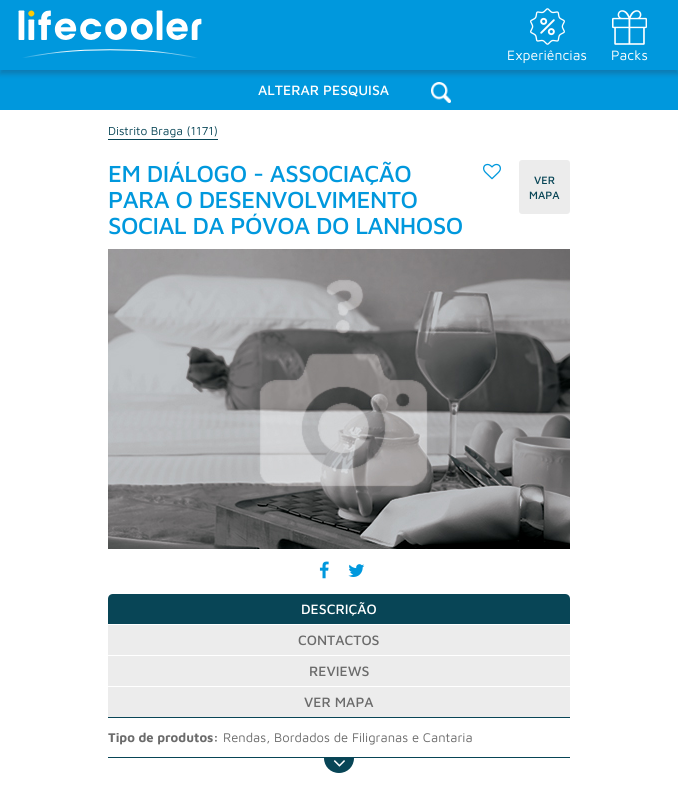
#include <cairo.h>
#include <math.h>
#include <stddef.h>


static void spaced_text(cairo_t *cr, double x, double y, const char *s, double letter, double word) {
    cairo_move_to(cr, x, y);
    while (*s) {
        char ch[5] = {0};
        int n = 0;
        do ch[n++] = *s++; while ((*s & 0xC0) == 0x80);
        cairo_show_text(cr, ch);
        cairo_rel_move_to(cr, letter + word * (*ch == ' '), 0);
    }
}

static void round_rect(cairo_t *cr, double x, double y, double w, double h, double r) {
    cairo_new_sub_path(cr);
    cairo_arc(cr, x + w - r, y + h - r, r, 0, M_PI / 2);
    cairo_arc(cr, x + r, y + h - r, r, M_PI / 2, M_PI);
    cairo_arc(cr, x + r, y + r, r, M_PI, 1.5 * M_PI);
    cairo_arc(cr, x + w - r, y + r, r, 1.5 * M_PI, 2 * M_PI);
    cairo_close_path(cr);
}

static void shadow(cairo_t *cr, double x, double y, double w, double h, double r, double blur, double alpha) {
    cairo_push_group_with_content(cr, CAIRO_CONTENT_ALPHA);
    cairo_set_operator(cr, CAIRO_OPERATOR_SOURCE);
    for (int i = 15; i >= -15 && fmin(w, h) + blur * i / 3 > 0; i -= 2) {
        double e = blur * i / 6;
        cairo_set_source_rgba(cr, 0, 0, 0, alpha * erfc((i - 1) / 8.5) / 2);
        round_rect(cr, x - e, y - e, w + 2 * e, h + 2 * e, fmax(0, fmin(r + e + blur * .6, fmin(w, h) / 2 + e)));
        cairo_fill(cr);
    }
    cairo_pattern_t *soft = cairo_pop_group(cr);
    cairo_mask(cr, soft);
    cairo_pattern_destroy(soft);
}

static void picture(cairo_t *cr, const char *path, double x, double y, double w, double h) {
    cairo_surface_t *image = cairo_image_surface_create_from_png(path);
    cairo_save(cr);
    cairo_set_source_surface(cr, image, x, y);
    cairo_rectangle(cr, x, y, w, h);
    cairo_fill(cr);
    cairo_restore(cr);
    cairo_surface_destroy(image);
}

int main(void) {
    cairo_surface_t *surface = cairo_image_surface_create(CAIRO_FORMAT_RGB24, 678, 810);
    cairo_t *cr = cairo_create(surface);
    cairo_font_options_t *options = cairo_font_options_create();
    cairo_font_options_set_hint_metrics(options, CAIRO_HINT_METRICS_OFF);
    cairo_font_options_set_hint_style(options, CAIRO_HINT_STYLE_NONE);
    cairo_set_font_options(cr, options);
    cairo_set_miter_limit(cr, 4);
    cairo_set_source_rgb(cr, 1, 1, 1);
    cairo_paint(cr);
    cairo_set_source_rgb(cr, 0, 0.596, 0.867);
    cairo_rectangle(cr, 0, 70, 678, 40);
    cairo_fill(cr);
    picture(cr, "img4.png", 431, 82, 20, 21);
    cairo_set_source_rgb(cr, 0.173, 0.22, 0.314);
    shadow(cr, 0, 4, 678, 70, 0, 2.5, 0.3);
    cairo_set_source_rgb(cr, 0, 0.596, 0.867);
    cairo_rectangle(cr, 0, 0, 678, 70);
    cairo_fill(cr);
    picture(cr, "img1.png", 18, 10, 184, 48);
    picture(cr, "img2.png", 530, 8, 35, 37);
    cairo_select_font_face(cr, "Maven Pro", CAIRO_FONT_SLANT_NORMAL, CAIRO_FONT_WEIGHT_NORMAL);
    cairo_set_font_size(cr, 14);
    cairo_set_source_rgb(cr, 1, 1, 1);
    cairo_move_to(cr, 507, 60);
    cairo_show_text(cr, "Experiências");
    picture(cr, "img3.png", 612, 10, 35, 35);
    cairo_move_to(cr, 611, 60);
    cairo_show_text(cr, "Packs");
    cairo_select_font_face(cr, "Maven Pro Medium", CAIRO_FONT_SLANT_NORMAL, CAIRO_FONT_WEIGHT_NORMAL);
    cairo_move_to(cr, 258, 95);
    cairo_show_text(cr, "ALTERAR PESQUISA");
    cairo_select_font_face(cr, "Maven Pro", CAIRO_FONT_SLANT_NORMAL, CAIRO_FONT_WEIGHT_NORMAL);
    cairo_set_font_size(cr, 12);
    cairo_set_source_rgb(cr, 0.035, 0.271, 0.337);
    cairo_move_to(cr, 108, 135);
    cairo_show_text(cr, "Distrito Braga (1171)");
    cairo_rectangle(cr, 108, 139, 110, 1);
    cairo_fill(cr);
    cairo_select_font_face(cr, "Maven Pro Medium", CAIRO_FONT_SLANT_NORMAL, CAIRO_FONT_WEIGHT_NORMAL);
    cairo_set_font_size(cr, 24);
    cairo_set_source_rgb(cr, 0, 0.596, 0.867);
    spaced_text(cr, 108, 182, "EM DIÁLOGO - ASSOCIAÇÃO", -0.5, 0);
    spaced_text(cr, 108, 208, "PARA O DESENVOLVIMENTO", -0.5, 0);
    spaced_text(cr, 108, 234, "SOCIAL DA PÓVOA DO LANHOSO", -0.5, 0);
    picture(cr, "img5.png", 483, 163, 18, 17);
    cairo_set_source_rgb(cr, 0.922, 0.922, 0.922);
    round_rect(cr, 519, 160, 51, 54, 3);
    cairo_fill(cr);
    cairo_set_font_size(cr, 11);
    cairo_set_source_rgb(cr, 0.035, 0.271, 0.337);
    cairo_move_to(cr, 534, 184);
    cairo_show_text(cr, "VER");
    cairo_move_to(cr, 529, 199);
    cairo_show_text(cr, "MAPA");
    picture(cr, "img6.png", 108, 249, 462, 300);
    picture(cr, "img7.png", 319, 561, 10, 18);
    picture(cr, "img8.png", 348, 564, 17, 13);
    cairo_rectangle(cr, 108, 717, 462, 1);
    cairo_fill(cr);
    cairo_new_path(cr);
    cairo_move_to(cr, 113, 594);
    cairo_line_to(cr, 565, 594);
    cairo_curve_to(cr, 568, 594, 570, 596, 570, 599);
    cairo_line_to(cr, 570, 624);
    cairo_line_to(cr, 108, 624);
    cairo_line_to(cr, 108, 599);
    cairo_curve_to(cr, 108, 596, 110, 594, 113, 594);
    cairo_close_path(cr);
    cairo_fill(cr);
    cairo_set_font_size(cr, 14);
    cairo_set_source_rgb(cr, 1, 1, 1);
    cairo_move_to(cr, 301, 614);
    cairo_show_text(cr, "DESCRIÇÃO");
    cairo_set_source_rgb(cr, 0.922, 0.922, 0.922);
    cairo_rectangle(cr, 108, 625, 462, 30);
    cairo_fill(cr);
    cairo_set_source_rgb(cr, 0.42, 0.42, 0.42);
    cairo_move_to(cr, 298, 645);
    cairo_show_text(cr, "CONTACTOS");
    cairo_set_source_rgb(cr, 0.922, 0.922, 0.922);
    cairo_rectangle(cr, 108, 656, 462, 30);
    cairo_fill(cr);
    cairo_set_source_rgb(cr, 0.42, 0.42, 0.42);
    cairo_move_to(cr, 309, 676);
    cairo_show_text(cr, "REVIEWS");
    cairo_set_source_rgb(cr, 0.922, 0.922, 0.922);
    cairo_rectangle(cr, 108, 687, 462, 30);
    cairo_fill(cr);
    cairo_set_source_rgb(cr, 0.42, 0.42, 0.42);
    cairo_move_to(cr, 304, 707);
    cairo_show_text(cr, "VER MAPA");
    cairo_set_source_rgb(cr, 0.035, 0.271, 0.337);
    cairo_rectangle(cr, 108, 757, 462, 1);
    cairo_fill(cr);
    cairo_select_font_face(cr, "Maven Pro", CAIRO_FONT_SLANT_NORMAL, CAIRO_FONT_WEIGHT_BOLD);
    cairo_set_font_size(cr, 13);
    cairo_set_source_rgb(cr, 0.42, 0.42, 0.42);
    cairo_move_to(cr, 108, 742);
    cairo_show_text(cr, "Tipo de produtos:");
    cairo_select_font_face(cr, "Maven Pro", CAIRO_FONT_SLANT_NORMAL, CAIRO_FONT_WEIGHT_NORMAL);
    cairo_move_to(cr, 223, 742);
    cairo_show_text(cr, "Rendas, Bordados de Filigranas e Cantaria");
    cairo_set_source_rgb(cr, 0.035, 0.271, 0.337);
    cairo_new_path(cr);
    cairo_move_to(cr, 324, 758);
    cairo_line_to(cr, 354, 758);
    cairo_curve_to(cr, 354, 766.5, 347.5, 773, 339, 773);
    cairo_curve_to(cr, 330.5, 773, 324, 766.5, 324, 758);
    cairo_close_path(cr);
    cairo_fill(cr);
    picture(cr, "img9.png", 333, 760, 12, 7);
    cairo_surface_write_to_png(surface, "page.png");
    cairo_font_options_destroy(options);
    cairo_destroy(cr);
    cairo_surface_destroy(surface);
    return 0;
}
